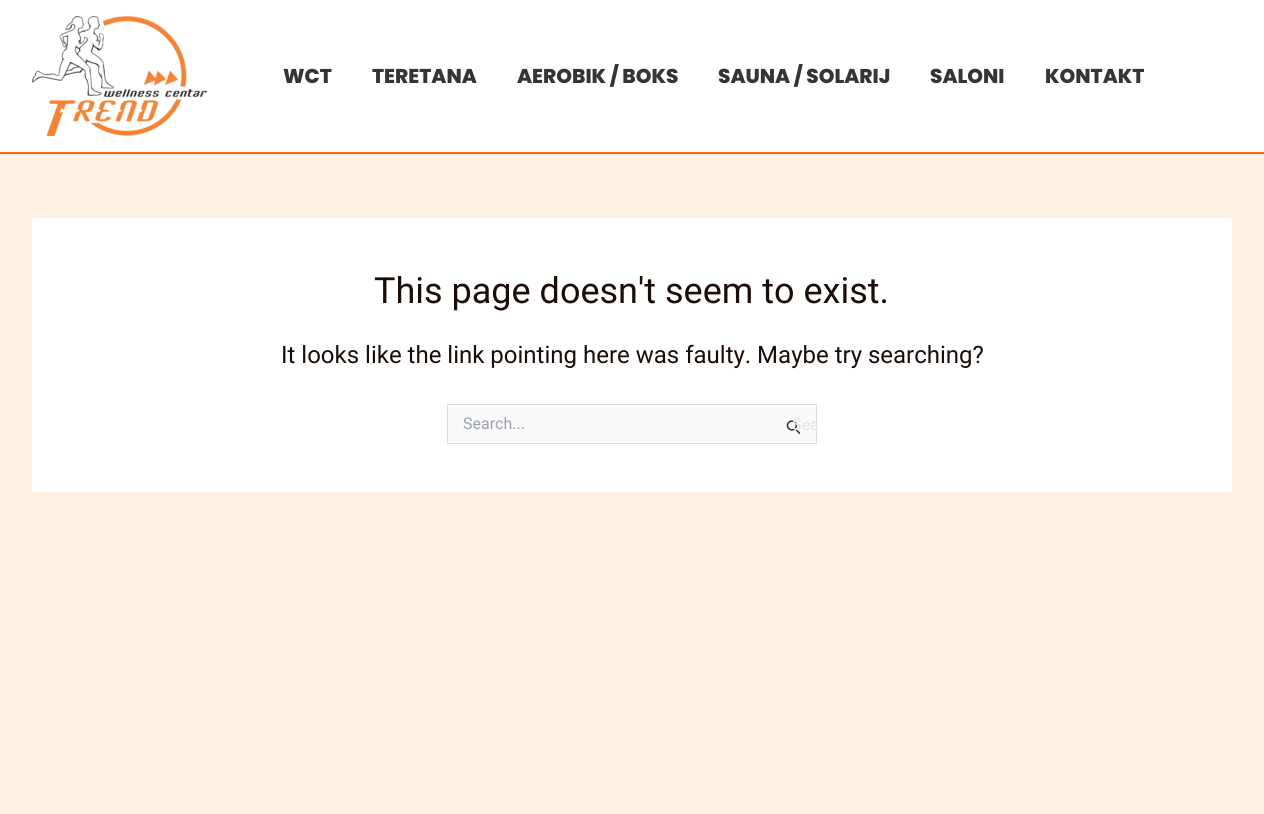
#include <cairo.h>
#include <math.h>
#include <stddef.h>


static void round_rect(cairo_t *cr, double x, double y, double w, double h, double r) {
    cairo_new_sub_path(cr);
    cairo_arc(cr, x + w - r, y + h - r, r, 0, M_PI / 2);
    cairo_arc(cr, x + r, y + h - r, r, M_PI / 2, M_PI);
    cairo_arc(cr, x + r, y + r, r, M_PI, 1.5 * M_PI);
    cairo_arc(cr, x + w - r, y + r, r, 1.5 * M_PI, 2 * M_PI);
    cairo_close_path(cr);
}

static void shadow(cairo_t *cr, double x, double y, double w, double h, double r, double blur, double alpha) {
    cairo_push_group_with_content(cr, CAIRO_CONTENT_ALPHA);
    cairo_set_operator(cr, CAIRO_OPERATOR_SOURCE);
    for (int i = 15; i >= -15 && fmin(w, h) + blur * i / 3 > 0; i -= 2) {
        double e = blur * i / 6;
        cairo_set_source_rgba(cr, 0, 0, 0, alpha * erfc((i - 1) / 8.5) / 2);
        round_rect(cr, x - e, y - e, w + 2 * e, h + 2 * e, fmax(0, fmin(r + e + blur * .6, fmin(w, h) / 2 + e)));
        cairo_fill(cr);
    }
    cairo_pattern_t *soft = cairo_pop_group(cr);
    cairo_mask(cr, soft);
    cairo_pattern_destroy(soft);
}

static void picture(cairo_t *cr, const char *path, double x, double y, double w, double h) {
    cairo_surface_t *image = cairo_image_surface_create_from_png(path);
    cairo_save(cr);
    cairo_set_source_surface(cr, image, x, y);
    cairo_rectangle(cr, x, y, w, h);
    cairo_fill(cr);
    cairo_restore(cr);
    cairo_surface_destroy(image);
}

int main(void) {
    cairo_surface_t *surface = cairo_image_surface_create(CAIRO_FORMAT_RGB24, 1264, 814);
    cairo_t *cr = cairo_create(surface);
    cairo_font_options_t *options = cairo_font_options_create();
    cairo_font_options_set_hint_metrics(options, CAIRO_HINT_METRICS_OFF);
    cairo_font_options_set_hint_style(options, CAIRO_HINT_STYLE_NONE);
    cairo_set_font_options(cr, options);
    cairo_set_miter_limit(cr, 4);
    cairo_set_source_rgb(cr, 0.996, 0.945, 0.894);
    cairo_paint(cr);
    cairo_set_source_rgb(cr, 1, 1, 1);
    cairo_rectangle(cr, 0, 0, 1264, 152);
    cairo_fill(cr);
    cairo_set_source_rgb(cr, 1, 0.384, 0.063);
    cairo_rectangle(cr, 0, 152, 1264, 2);
    cairo_fill(cr);
    picture(cr, "img1.png", 32, 16, 175, 120);
    cairo_select_font_face(cr, "Poppins ExtraBold", CAIRO_FONT_SLANT_NORMAL, CAIRO_FONT_WEIGHT_NORMAL);
    cairo_set_font_size(cr, 20);
    cairo_set_source_rgb(cr, 0.208, 0.208, 0.208);
    cairo_move_to(cr, 283, 83);
    cairo_show_text(cr, "WCT");
    cairo_move_to(cr, 372, 83);
    cairo_show_text(cr, "TERETANA");
    cairo_move_to(cr, 517, 83);
    cairo_show_text(cr, "AEROBIK / BOKS");
    cairo_move_to(cr, 718, 83);
    cairo_show_text(cr, "SAUNA / SOLARIJ");
    cairo_move_to(cr, 930, 83);
    cairo_show_text(cr, "SALONI");
    cairo_move_to(cr, 1045, 83);
    cairo_show_text(cr, "KONTAKT");
    cairo_set_source_rgb(cr, 1, 1, 1);
    cairo_rectangle(cr, 32, 218, 1200, 274);
    cairo_fill(cr);
    cairo_select_font_face(cr, "Roboto", CAIRO_FONT_SLANT_NORMAL, CAIRO_FONT_WEIGHT_NORMAL);
    cairo_set_font_size(cr, 36);
    cairo_set_source_rgb(cr, 0.11, 0.051, 0.039);
    cairo_move_to(cr, 374, 303);
    cairo_show_text(cr, "This page doesn't seem to exist.");
    cairo_set_font_size(cr, 24);
    cairo_move_to(cr, 281, 363);
    cairo_show_text(cr, "It looks like the link pointing here was faulty. Maybe try searching?");
    cairo_set_source_rgb(cr, 0, 0, 0);
    shadow(cr, 447, 405, 370, 40, 2, 1, 0.05);
    cairo_set_source_rgb(cr, 0.98, 0.98, 0.98);
    round_rect(cr, 447.5, 404.5, 369, 39, 1.5);
    cairo_fill_preserve(cr);
    cairo_set_source_rgb(cr, 0.898, 0.843, 0.82);
    cairo_set_line_width(cr, 1);
    cairo_stroke(cr);
    cairo_set_font_size(cr, 16);
    cairo_set_source_rgb(cr, 0.612, 0.639, 0.686);
    cairo_move_to(cr, 463, 429);
    cairo_show_text(cr, "Search...");
    picture(cr, "img2.png", 786, 420, 14, 15);
    cairo_save(cr);
    round_rect(cr, 772, 404, 45, 42, 2);
    cairo_clip(cr);
    cairo_select_font_face(cr, "Roboto Medium", CAIRO_FONT_SLANT_NORMAL, CAIRO_FONT_WEIGHT_NORMAL);
    cairo_set_source_rgb(cr, 0.902, 0.898, 0.898);
    cairo_move_to(cr, 792, 430);
    cairo_show_text(cr, "Sea");
    cairo_restore(cr);
    cairo_surface_write_to_png(surface, "page.png");
    cairo_font_options_destroy(options);
    cairo_destroy(cr);
    cairo_surface_destroy(surface);
    return 0;
}
